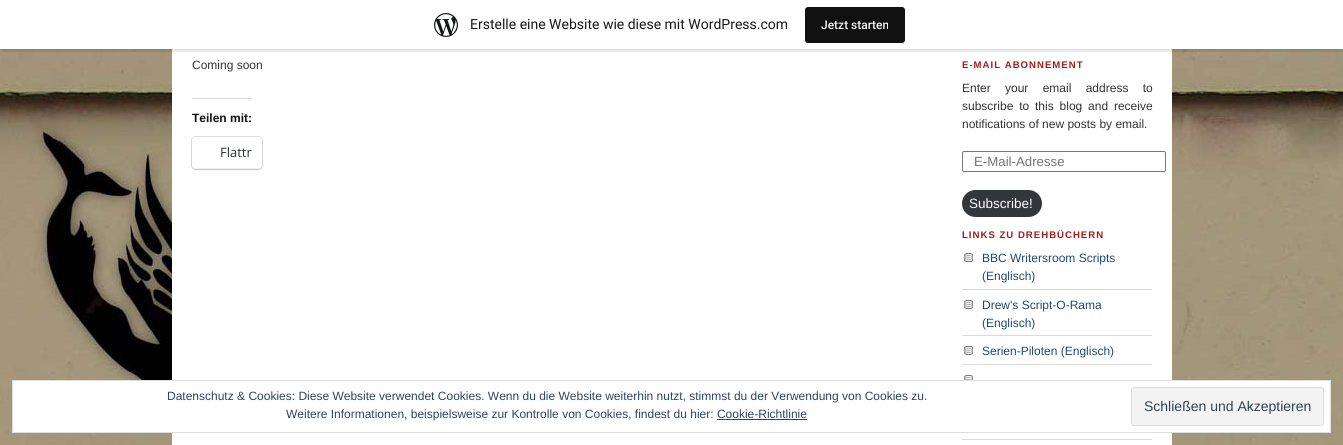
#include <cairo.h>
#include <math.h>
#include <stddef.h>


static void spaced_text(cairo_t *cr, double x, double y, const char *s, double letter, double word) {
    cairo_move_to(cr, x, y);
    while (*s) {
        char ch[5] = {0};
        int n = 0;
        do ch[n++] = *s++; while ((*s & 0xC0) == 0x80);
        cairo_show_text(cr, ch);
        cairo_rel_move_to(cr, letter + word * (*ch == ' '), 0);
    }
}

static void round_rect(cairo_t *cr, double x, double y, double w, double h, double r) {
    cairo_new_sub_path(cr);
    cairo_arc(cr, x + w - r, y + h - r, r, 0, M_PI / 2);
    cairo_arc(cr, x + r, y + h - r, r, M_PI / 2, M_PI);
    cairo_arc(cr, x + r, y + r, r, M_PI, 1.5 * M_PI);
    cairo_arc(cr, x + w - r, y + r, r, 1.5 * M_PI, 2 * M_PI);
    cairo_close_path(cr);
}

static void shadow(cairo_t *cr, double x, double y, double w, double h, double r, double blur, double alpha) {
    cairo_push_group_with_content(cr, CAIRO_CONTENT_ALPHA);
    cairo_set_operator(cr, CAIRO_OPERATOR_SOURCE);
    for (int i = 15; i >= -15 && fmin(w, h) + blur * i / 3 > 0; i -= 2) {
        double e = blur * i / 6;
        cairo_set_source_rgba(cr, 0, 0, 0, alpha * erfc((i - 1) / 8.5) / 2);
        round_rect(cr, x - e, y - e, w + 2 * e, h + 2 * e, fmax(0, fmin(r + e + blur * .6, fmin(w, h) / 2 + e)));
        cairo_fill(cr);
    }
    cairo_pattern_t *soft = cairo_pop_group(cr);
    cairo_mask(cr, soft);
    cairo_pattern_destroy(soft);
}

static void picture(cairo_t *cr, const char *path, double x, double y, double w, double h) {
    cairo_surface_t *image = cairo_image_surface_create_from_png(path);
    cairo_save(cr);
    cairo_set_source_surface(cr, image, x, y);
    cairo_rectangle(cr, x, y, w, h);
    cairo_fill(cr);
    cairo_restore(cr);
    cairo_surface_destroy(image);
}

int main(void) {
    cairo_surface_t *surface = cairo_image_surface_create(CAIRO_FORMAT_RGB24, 1343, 445);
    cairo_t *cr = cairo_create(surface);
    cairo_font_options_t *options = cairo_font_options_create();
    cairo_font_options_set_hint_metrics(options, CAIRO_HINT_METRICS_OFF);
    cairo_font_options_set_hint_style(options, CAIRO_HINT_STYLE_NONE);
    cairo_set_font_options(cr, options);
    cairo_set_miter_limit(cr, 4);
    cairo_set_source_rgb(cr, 1, 1, 1);
    cairo_paint(cr);
    picture(cr, "img1.png", 0, 49, 1343, 396);
    cairo_set_source_rgb(cr, 1, 1, 1);
    cairo_rectangle(cr, 172, 49, 1000, 396);
    cairo_fill(cr);
    cairo_select_font_face(cr, "Liberation Sans", CAIRO_FONT_SLANT_NORMAL, CAIRO_FONT_WEIGHT_NORMAL);
    cairo_set_font_size(cr, 12);
    cairo_set_source_rgb(cr, 0.2, 0.2, 0.2);
    cairo_move_to(cr, 192, 69);
    cairo_show_text(cr, "Coming soon");
    cairo_set_source_rgb(cr, 0.863, 0.863, 0.871);
    cairo_rectangle(cr, 192, 98, 60, 1);
    cairo_fill(cr);
    cairo_select_font_face(cr, "Liberation Sans", CAIRO_FONT_SLANT_NORMAL, CAIRO_FONT_WEIGHT_BOLD);
    cairo_set_source_rgb(cr, 0.067, 0.067, 0.067);
    cairo_move_to(cr, 192, 122);
    cairo_show_text(cr, "Teilen mit:");
    round_rect(cr, 191.5, 136.5, 71, 33, 4.5);
    cairo_set_source_rgb(cr, 0.878, 0.878, 0.878);
    cairo_set_line_width(cr, 1);
    cairo_stroke(cr);
    cairo_set_source_rgb(cr, 0, 0, 0);
    shadow(cr, 192, 138, 70, 32, 4, 1, 0.12);
    cairo_set_source_rgb(cr, 1, 1, 1);
    round_rect(cr, 192, 137, 70, 32, 4);
    cairo_fill(cr);
    cairo_set_source_rgb(cr, 0.933, 0.933, 0.933);
    cairo_rectangle(cr, 194, 168, 66, 1);
    cairo_fill(cr);
    cairo_select_font_face(cr, "Open Sans", CAIRO_FONT_SLANT_NORMAL, CAIRO_FONT_WEIGHT_NORMAL);
    cairo_set_font_size(cr, 13);
    cairo_set_source_rgb(cr, 0.173, 0.2, 0.22);
    cairo_move_to(cr, 220, 157);
    cairo_show_text(cr, "Flattr");
    cairo_set_source_rgb(cr, 0, 0, 0);
    shadow(cr, 0, 1, 1343, 49, 0, 1, 0.05);
    cairo_set_source_rgba(cr, 0, 0, 0, 0.08);
    cairo_new_path(cr);
    cairo_move_to(cr, 1, 49);
    cairo_line_to(cr, 1, 52);
    cairo_line_to(cr, 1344, 52);
    cairo_line_to(cr, 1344, 3);
    cairo_line_to(cr, 1343, 3);
    cairo_line_to(cr, 1343, 49);
    cairo_close_path(cr);
    cairo_fill(cr);
    cairo_set_source_rgb(cr, 1, 1, 1);
    cairo_rectangle(cr, 0, 0, 1343, 49);
    cairo_fill(cr);
    picture(cr, "img2.png", 434, 13, 24, 24);
    cairo_select_font_face(cr, "Roboto", CAIRO_FONT_SLANT_NORMAL, CAIRO_FONT_WEIGHT_NORMAL);
    cairo_set_font_size(cr, 14);
    cairo_set_source_rgb(cr, 0.09, 0.09, 0.09);
    cairo_move_to(cr, 470, 29);
    cairo_show_text(cr, "Erstelle eine Website wie diese mit WordPress.com");
    cairo_set_source_rgb(cr, 0.067, 0.067, 0.067);
    round_rect(cr, 805, 7, 100, 36, 3);
    cairo_fill(cr);
    cairo_select_font_face(cr, "Roboto Medium", CAIRO_FONT_SLANT_NORMAL, CAIRO_FONT_WEIGHT_NORMAL);
    cairo_set_font_size(cr, 12);
    cairo_set_source_rgb(cr, 0.965, 0.969, 0.969);
    cairo_move_to(cr, 821, 29);
    cairo_show_text(cr, "Jetzt starten");
    cairo_select_font_face(cr, "Liberation Sans", CAIRO_FONT_SLANT_NORMAL, CAIRO_FONT_WEIGHT_BOLD);
    cairo_set_font_size(cr, 9.6);
    cairo_set_source_rgb(cr, 0.631, 0.106, 0.106);
    spaced_text(cr, 962, 68, "E-MAIL ABONNEMENT", 1, 0);
    cairo_select_font_face(cr, "Liberation Sans", CAIRO_FONT_SLANT_NORMAL, CAIRO_FONT_WEIGHT_NORMAL);
    cairo_set_font_size(cr, 12);
    cairo_set_source_rgb(cr, 0.2, 0.2, 0.2);
    spaced_text(cr, 962, 92, "Enter your email address to", 0, 11);
    spaced_text(cr, 962, 110, "subscribe to this blog and receive", 0, 2.5);
    cairo_move_to(cr, 962, 128);
    cairo_show_text(cr, "notifications of new posts by email.");
    round_rect(cr, 962.5, 151.5, 203, 20, 1.5);
    cairo_set_source_rgb(cr, 0.463, 0.463, 0.463);
    cairo_stroke(cr);
    cairo_set_font_size(cr, 13.25);
    cairo_set_source_rgb(cr, 0.459, 0.459, 0.459);
    cairo_move_to(cr, 974, 166);
    cairo_show_text(cr, "E-Mail-Adresse");
    cairo_set_source_rgb(cr, 0.196, 0.216, 0.235);
    round_rect(cr, 962, 190, 80, 27, 13.5);
    cairo_fill(cr);
    cairo_set_font_size(cr, 13.5);
    cairo_set_source_rgb(cr, 1, 1, 1);
    cairo_move_to(cr, 969, 208);
    cairo_show_text(cr, "Subscribe!");
    cairo_select_font_face(cr, "Liberation Sans", CAIRO_FONT_SLANT_NORMAL, CAIRO_FONT_WEIGHT_BOLD);
    cairo_set_font_size(cr, 9.6);
    cairo_set_source_rgb(cr, 0.631, 0.106, 0.106);
    spaced_text(cr, 962, 238, "LINKS ZU DREHBÜCHERN", 1, 0);
    picture(cr, "img3.png", 964, 253, 9, 9);
    cairo_set_source_rgb(cr, 0.855, 0.855, 0.855);
    cairo_rectangle(cr, 962, 289, 190, 1);
    cairo_fill(cr);
    cairo_select_font_face(cr, "Liberation Sans", CAIRO_FONT_SLANT_NORMAL, CAIRO_FONT_WEIGHT_NORMAL);
    cairo_set_font_size(cr, 12);
    cairo_set_source_rgb(cr, 0.133, 0.286, 0.439);
    cairo_move_to(cr, 982, 262);
    cairo_show_text(cr, "BBC Writersroom Scripts");
    cairo_move_to(cr, 982, 280);
    cairo_show_text(cr, "(Englisch)");
    picture(cr, "img3.png", 964, 300, 9, 9);
    cairo_set_source_rgb(cr, 0.855, 0.855, 0.855);
    cairo_rectangle(cr, 962, 335, 190, 1);
    cairo_fill(cr);
    cairo_set_source_rgb(cr, 0.133, 0.286, 0.439);
    cairo_move_to(cr, 982, 309);
    cairo_show_text(cr, "Drew's Script-O-Rama");
    cairo_move_to(cr, 982, 327);
    cairo_show_text(cr, "(Englisch)");
    picture(cr, "img3.png", 964, 346, 9, 9);
    cairo_set_source_rgb(cr, 0.855, 0.855, 0.855);
    cairo_rectangle(cr, 962, 364, 190, 1);
    cairo_fill(cr);
    cairo_set_source_rgb(cr, 0.133, 0.286, 0.439);
    cairo_move_to(cr, 982, 355);
    cairo_show_text(cr, "Serien-Piloten (Englisch)");
    picture(cr, "img4.png", 964, 375, 9, 5);
    cairo_set_source_rgb(cr, 0.855, 0.855, 0.855);
    cairo_rectangle(cr, 962, 439, 190, 1);
    cairo_fill(cr);
    cairo_set_source_rgb(cr, 1, 1, 1);
    cairo_rectangle(cr, 12.5, 380.5, 1318, 52);
    cairo_fill_preserve(cr);
    cairo_set_source_rgb(cr, 0.871, 0.871, 0.871);
    cairo_stroke(cr);
    cairo_set_source_rgb(cr, 0.18, 0.267, 0.404);
    cairo_move_to(cr, 167, 400);
    cairo_show_text(cr, "Datenschutz & Cookies: Diese Website verwendet Cookies. Wenn du die Website weiterhin nutzt, stimmst du der Verwendung von Cookies zu.");
    cairo_move_to(cr, 286, 418);
    cairo_show_text(cr, "Weitere Informationen, beispielsweise zur Kontrolle von Cookies, findest du hier: Cookie-Richtlinie");
    cairo_set_source_rgb(cr, 0.953, 0.953, 0.953);
    round_rect(cr, 1131.5, 387.5, 192, 38, 2.5);
    cairo_fill_preserve(cr);
    cairo_set_source_rgb(cr, 0.871, 0.871, 0.871);
    cairo_stroke(cr);
    cairo_set_font_size(cr, 14);
    cairo_set_source_rgb(cr, 0.18, 0.267, 0.325);
    cairo_move_to(cr, 1144, 411);
    cairo_show_text(cr, "Schließen und Akzeptieren");
    cairo_set_source_rgb(cr, 0.18, 0.267, 0.404);
    cairo_rectangle(cr, 717, 419, 90, 1);
    cairo_fill(cr);
    cairo_surface_write_to_png(surface, "page.png");
    cairo_font_options_destroy(options);
    cairo_destroy(cr);
    cairo_surface_destroy(surface);
    return 0;
}
